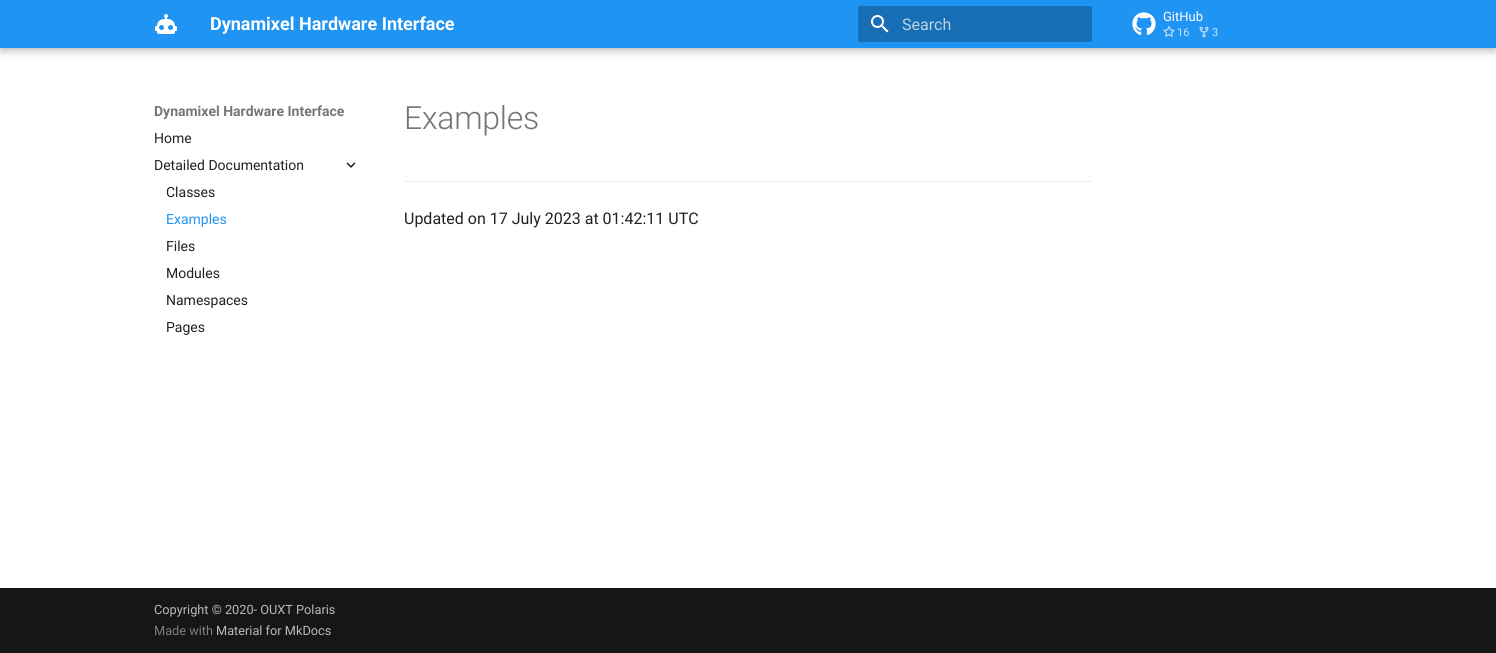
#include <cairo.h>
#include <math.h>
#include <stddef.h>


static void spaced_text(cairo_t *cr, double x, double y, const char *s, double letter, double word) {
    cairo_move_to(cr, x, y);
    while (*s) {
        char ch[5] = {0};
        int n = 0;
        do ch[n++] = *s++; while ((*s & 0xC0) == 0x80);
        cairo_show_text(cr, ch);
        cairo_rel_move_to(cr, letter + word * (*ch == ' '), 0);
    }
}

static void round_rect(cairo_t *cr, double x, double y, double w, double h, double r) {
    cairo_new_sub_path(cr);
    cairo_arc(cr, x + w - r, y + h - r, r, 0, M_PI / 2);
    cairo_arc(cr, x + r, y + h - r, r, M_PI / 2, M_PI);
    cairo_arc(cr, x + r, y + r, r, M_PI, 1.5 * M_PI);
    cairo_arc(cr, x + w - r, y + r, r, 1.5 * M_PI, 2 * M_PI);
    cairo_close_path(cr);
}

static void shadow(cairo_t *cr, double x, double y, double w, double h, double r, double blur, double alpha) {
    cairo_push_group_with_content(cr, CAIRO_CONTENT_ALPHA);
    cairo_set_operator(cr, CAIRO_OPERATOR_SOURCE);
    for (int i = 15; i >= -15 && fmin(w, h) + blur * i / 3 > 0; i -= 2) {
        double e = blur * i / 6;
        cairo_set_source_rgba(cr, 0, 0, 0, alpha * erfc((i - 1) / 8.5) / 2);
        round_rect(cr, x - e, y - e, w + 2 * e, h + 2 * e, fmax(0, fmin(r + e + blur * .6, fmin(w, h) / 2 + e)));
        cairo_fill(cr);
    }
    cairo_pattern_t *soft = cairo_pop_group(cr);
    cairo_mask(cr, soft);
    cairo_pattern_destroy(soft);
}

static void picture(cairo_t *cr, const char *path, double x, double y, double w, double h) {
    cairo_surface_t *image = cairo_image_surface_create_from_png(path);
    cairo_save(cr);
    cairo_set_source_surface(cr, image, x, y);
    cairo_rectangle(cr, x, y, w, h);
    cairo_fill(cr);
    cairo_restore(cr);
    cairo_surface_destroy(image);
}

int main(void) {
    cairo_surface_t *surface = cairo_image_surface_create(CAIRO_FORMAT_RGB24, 1496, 653);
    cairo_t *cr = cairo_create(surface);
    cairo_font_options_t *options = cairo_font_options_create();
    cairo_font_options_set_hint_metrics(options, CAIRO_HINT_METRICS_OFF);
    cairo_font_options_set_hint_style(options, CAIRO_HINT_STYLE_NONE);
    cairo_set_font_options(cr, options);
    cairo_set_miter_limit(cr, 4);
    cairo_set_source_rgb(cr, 1, 1, 1);
    cairo_paint(cr);
    cairo_set_source_rgb(cr, 0, 0, 0);
    shadow(cr, 0, 4, 1496, 48, 0, 4, 0.2);
    shadow(cr, 0, 0, 1496, 48, 0, 2, 0.1);
    cairo_set_source_rgb(cr, 0.125, 0.58, 0.953);
    cairo_rectangle(cr, 0, 0, 1496, 48);
    cairo_fill(cr);
    picture(cr, "img1.png", 155, 14, 22, 20);
    cairo_select_font_face(cr, "Roboto", CAIRO_FONT_SLANT_NORMAL, CAIRO_FONT_WEIGHT_BOLD);
    cairo_set_font_size(cr, 18);
    cairo_set_source_rgb(cr, 1, 1, 1);
    cairo_move_to(cr, 210, 30);
    cairo_show_text(cr, "Dynamixel Hardware Interface");
    cairo_set_source_rgb(cr, 0.094, 0.431, 0.706);
    round_rect(cr, 858, 6, 234, 36, 2);
    cairo_fill(cr);
    picture(cr, "img2.png", 871, 15, 18, 18);
    cairo_select_font_face(cr, "Roboto", CAIRO_FONT_SLANT_NORMAL, CAIRO_FONT_WEIGHT_NORMAL);
    cairo_set_font_size(cr, 16);
    cairo_set_source_rgb(cr, 0.729, 0.831, 0.914);
    cairo_move_to(cr, 902, 30);
    cairo_show_text(cr, "Search");
    picture(cr, "img3.png", 1132, 12, 24, 23);
    cairo_set_font_size(cr, 13);
    cairo_set_source_rgb(cr, 1, 1, 1);
    cairo_move_to(cr, 1163, 21);
    cairo_show_text(cr, "GitHub");
    picture(cr, "img4.png", 1163, 26, 12, 11);
    cairo_set_font_size(cr, 11);
    cairo_set_source_rgb(cr, 0.78, 0.894, 0.988);
    cairo_move_to(cr, 1177, 36);
    cairo_show_text(cr, "16");
    picture(cr, "img5.png", 1199, 26, 10, 12);
    cairo_move_to(cr, 1212, 36);
    cairo_show_text(cr, "3");
    cairo_save(cr);
    cairo_rectangle(cr, 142, 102, 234, 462);
    cairo_clip(cr);
    cairo_set_fill_rule(cr, CAIRO_FILL_RULE_EVEN_ODD);
    cairo_new_path(cr);
    cairo_move_to(cr, 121, 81);
    cairo_line_to(cr, 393, 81);
    cairo_line_to(cr, 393, 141);
    cairo_line_to(cr, 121, 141);
    cairo_close_path(cr);
    cairo_move_to(cr, 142, 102);
    cairo_line_to(cr, 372, 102);
    cairo_line_to(cr, 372, 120);
    cairo_line_to(cr, 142, 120);
    cairo_close_path(cr);
    cairo_clip(cr);
    cairo_set_source_rgb(cr, 1, 1, 1);
    shadow(cr, 134, 94, 246, 34, 0, 4, 1);
    cairo_restore(cr);
    cairo_select_font_face(cr, "Roboto", CAIRO_FONT_SLANT_NORMAL, CAIRO_FONT_WEIGHT_BOLD);
    cairo_set_font_size(cr, 14);
    cairo_set_source_rgb(cr, 0.459, 0.459, 0.459);
    cairo_move_to(cr, 154, 116);
    cairo_show_text(cr, "Dynamixel Hardware Interface");
    cairo_select_font_face(cr, "Roboto", CAIRO_FONT_SLANT_NORMAL, CAIRO_FONT_WEIGHT_NORMAL);
    cairo_set_source_rgb(cr, 0.129, 0.129, 0.129);
    cairo_move_to(cr, 154, 143);
    cairo_show_text(cr, "Home");
    cairo_move_to(cr, 154, 170);
    cairo_show_text(cr, "Detailed Documentation");
    picture(cr, "img6.png", 346, 162, 10, 6);
    cairo_move_to(cr, 166, 197);
    cairo_show_text(cr, "Classes");
    cairo_set_source_rgb(cr, 0.125, 0.58, 0.953);
    cairo_move_to(cr, 166, 224);
    cairo_show_text(cr, "Examples");
    cairo_set_source_rgb(cr, 0.129, 0.129, 0.129);
    cairo_move_to(cr, 166, 251);
    cairo_show_text(cr, "Files");
    cairo_move_to(cr, 166, 278);
    cairo_show_text(cr, "Modules");
    cairo_move_to(cr, 166, 305);
    cairo_show_text(cr, "Namespaces");
    cairo_move_to(cr, 166, 332);
    cairo_show_text(cr, "Pages");
    cairo_select_font_face(cr, "Roboto Light", CAIRO_FONT_SLANT_NORMAL, CAIRO_FONT_WEIGHT_NORMAL);
    cairo_set_font_size(cr, 32);
    cairo_set_source_rgb(cr, 0.459, 0.459, 0.459);
    spaced_text(cr, 404, 129, "Examples", -0.25, 0);
    cairo_set_source_rgb(cr, 0.929, 0.929, 0.929);
    cairo_rectangle(cr, 404, 181, 688, 1);
    cairo_fill(cr);
    cairo_select_font_face(cr, "Roboto", CAIRO_FONT_SLANT_NORMAL, CAIRO_FONT_WEIGHT_NORMAL);
    cairo_set_font_size(cr, 16);
    cairo_set_source_rgb(cr, 0.129, 0.129, 0.129);
    cairo_move_to(cr, 404, 224);
    cairo_show_text(cr, "Updated on 17 July 2023 at 01:42:11 UTC");
    cairo_set_source_rgb(cr, 0.086, 0.086, 0.086);
    cairo_rectangle(cr, 0, 588, 1496, 65);
    cairo_fill(cr);
    cairo_set_font_size(cr, 12.75);
    cairo_set_source_rgb(cr, 0.725, 0.725, 0.725);
    cairo_move_to(cr, 154, 614);
    cairo_show_text(cr, "Copyright © 2020- OUXT Polaris");
    cairo_set_source_rgb(cr, 0.498, 0.498, 0.498);
    cairo_move_to(cr, 154, 635);
    cairo_show_text(cr, "Made with");
    cairo_set_source_rgb(cr, 0.725, 0.725, 0.725);
    cairo_move_to(cr, 216, 635);
    cairo_show_text(cr, "Material for MkDocs");
    cairo_surface_write_to_png(surface, "page.png");
    cairo_font_options_destroy(options);
    cairo_destroy(cr);
    cairo_surface_destroy(surface);
    return 0;
}
